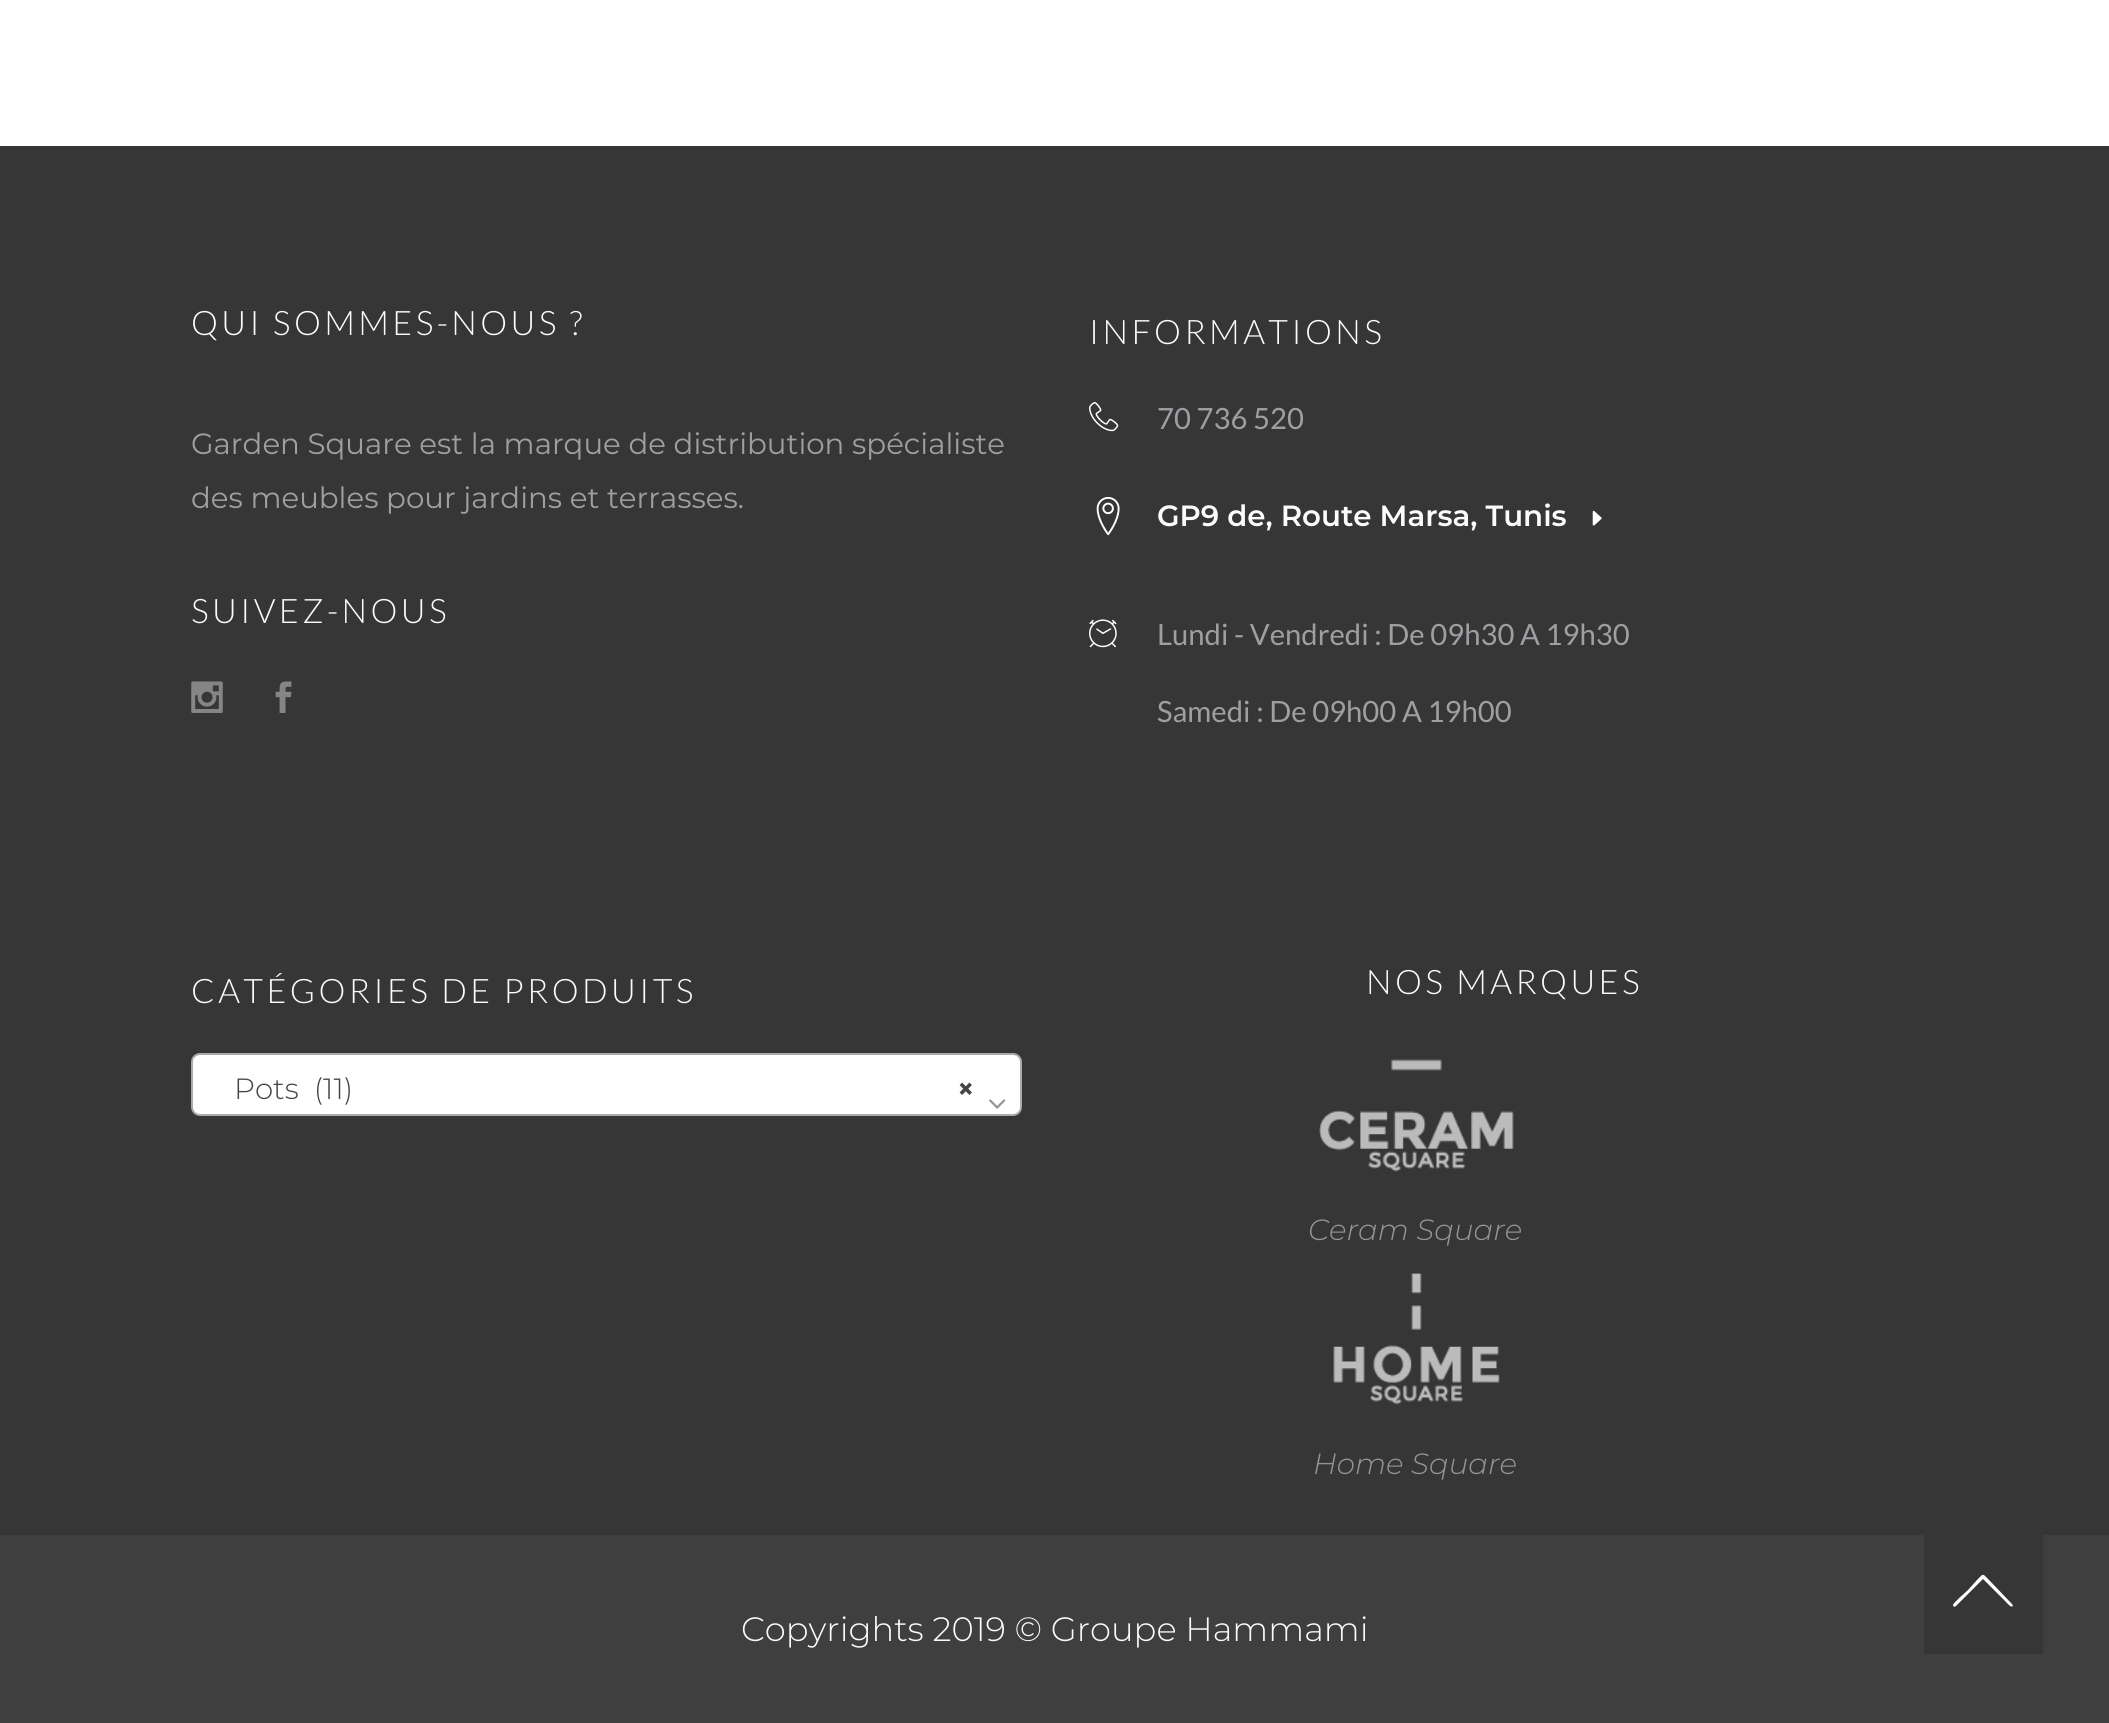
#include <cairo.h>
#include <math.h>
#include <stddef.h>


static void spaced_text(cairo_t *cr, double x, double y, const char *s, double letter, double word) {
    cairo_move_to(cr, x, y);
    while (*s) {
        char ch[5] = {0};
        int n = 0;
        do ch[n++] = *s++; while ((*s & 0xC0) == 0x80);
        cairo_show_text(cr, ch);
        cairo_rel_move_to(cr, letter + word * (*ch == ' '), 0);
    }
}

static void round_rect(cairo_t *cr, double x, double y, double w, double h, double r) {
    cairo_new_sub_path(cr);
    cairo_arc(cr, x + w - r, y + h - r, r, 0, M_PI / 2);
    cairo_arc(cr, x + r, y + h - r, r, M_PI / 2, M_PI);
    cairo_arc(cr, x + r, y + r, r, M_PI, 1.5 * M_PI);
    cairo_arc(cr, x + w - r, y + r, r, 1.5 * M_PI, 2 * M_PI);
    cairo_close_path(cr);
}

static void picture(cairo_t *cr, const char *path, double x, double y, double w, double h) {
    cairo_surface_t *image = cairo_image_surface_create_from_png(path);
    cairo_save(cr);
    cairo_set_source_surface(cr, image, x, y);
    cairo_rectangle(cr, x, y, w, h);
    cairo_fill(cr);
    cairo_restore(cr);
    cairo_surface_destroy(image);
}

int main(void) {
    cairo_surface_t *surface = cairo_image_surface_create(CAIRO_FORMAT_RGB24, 2109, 1723);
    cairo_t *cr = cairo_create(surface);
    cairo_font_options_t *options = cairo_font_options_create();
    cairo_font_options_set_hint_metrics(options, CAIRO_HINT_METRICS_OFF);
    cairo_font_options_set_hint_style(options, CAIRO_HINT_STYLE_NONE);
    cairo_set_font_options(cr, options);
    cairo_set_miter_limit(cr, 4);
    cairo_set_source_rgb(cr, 1, 1, 1);
    cairo_paint(cr);
    cairo_set_source_rgb(cr, 0.212, 0.212, 0.212);
    cairo_rectangle(cr, 0, 146, 2109, 1389);
    cairo_fill(cr);
    cairo_select_font_face(cr, "Lato Light", CAIRO_FONT_SLANT_NORMAL, CAIRO_FONT_WEIGHT_NORMAL);
    cairo_set_font_size(cr, 33.75);
    cairo_set_source_rgb(cr, 0.984, 0.984, 0.988);
    spaced_text(cr, 191, 335, "QUI SOMMES-NOUS ?", 3.4, 0);
    cairo_select_font_face(cr, "Montserrat", CAIRO_FONT_SLANT_NORMAL, CAIRO_FONT_WEIGHT_NORMAL);
    cairo_set_font_size(cr, 29.25);
    cairo_set_source_rgb(cr, 0.616, 0.624, 0.635);
    cairo_move_to(cr, 191, 454);
    cairo_show_text(cr, "Garden Square est la marque de distribution spécialiste");
    cairo_move_to(cr, 191, 508);
    cairo_show_text(cr, "des meubles pour jardins et terrasses.");
    cairo_select_font_face(cr, "Lato Light", CAIRO_FONT_SLANT_NORMAL, CAIRO_FONT_WEIGHT_NORMAL);
    cairo_set_font_size(cr, 33.75);
    cairo_set_source_rgb(cr, 0.984, 0.984, 0.988);
    spaced_text(cr, 191, 623, "SUIVEZ-NOUS", 3.4, 0);
    picture(cr, "img1.png", 191, 681, 32, 32);
    picture(cr, "img2.png", 275, 681, 17, 32);
    spaced_text(cr, 1089, 344, "INFORMATIONS", 3.4, 0);
    picture(cr, "img3.png", 1089, 402, 30, 30);
    cairo_select_font_face(cr, "Lato", CAIRO_FONT_SLANT_NORMAL, CAIRO_FONT_WEIGHT_NORMAL);
    cairo_set_font_size(cr, 29.25);
    cairo_set_source_rgb(cr, 0.616, 0.624, 0.635);
    cairo_move_to(cr, 1157, 429);
    cairo_show_text(cr, "70 736 520");
    picture(cr, "img4.png", 1096, 496, 24, 40);
    cairo_select_font_face(cr, "Montserrat SemiBold", CAIRO_FONT_SLANT_NORMAL, CAIRO_FONT_WEIGHT_NORMAL);
    cairo_set_source_rgb(cr, 0.984, 0.984, 0.988);
    cairo_move_to(cr, 1157, 526);
    cairo_show_text(cr, "GP9 de, Route Marsa, Tunis");
    picture(cr, "img5.png", 1592, 510, 10, 16);
    picture(cr, "img6.png", 1089, 619, 28, 29);
    cairo_select_font_face(cr, "Lato", CAIRO_FONT_SLANT_NORMAL, CAIRO_FONT_WEIGHT_NORMAL);
    cairo_set_source_rgb(cr, 0.616, 0.624, 0.635);
    cairo_move_to(cr, 1157, 645);
    cairo_show_text(cr, "Lundi - Vendredi : De 09h30 A 19h30");
    cairo_move_to(cr, 1157, 722);
    cairo_show_text(cr, "Samedi : De 09h00 A 19h00");
    cairo_select_font_face(cr, "Lato Light", CAIRO_FONT_SLANT_NORMAL, CAIRO_FONT_WEIGHT_NORMAL);
    cairo_set_font_size(cr, 33.75);
    cairo_set_source_rgb(cr, 0.984, 0.984, 0.988);
    spaced_text(cr, 191, 1003, "CATÉGORIES DE PRODUITS", 3.4, 0);
    cairo_set_source_rgb(cr, 1, 1, 1);
    round_rect(cr, 192, 1054, 829, 61, 8);
    cairo_fill_preserve(cr);
    cairo_set_source_rgb(cr, 0.667, 0.667, 0.667);
    cairo_stroke(cr);
    cairo_select_font_face(cr, "Montserrat Light", CAIRO_FONT_SLANT_NORMAL, CAIRO_FONT_WEIGHT_NORMAL);
    cairo_set_font_size(cr, 29.25);
    cairo_set_source_rgb(cr, 0.267, 0.267, 0.267);
    cairo_move_to(cr, 234, 1099);
    cairo_show_text(cr, "Pots  (11)");
    cairo_select_font_face(cr, "Montserrat", CAIRO_FONT_SLANT_NORMAL, CAIRO_FONT_WEIGHT_BOLD);
    cairo_move_to(cr, 957, 1099);
    cairo_show_text(cr, "×");
    picture(cr, "img7.png", 989, 1099, 17, 10);
    cairo_select_font_face(cr, "Lato Light", CAIRO_FONT_SLANT_NORMAL, CAIRO_FONT_WEIGHT_NORMAL);
    cairo_set_font_size(cr, 33.75);
    cairo_set_source_rgb(cr, 0.984, 0.984, 0.988);
    spaced_text(cr, 1366, 994, "NOS MARQUES", 3.4, 0);
    picture(cr, "img8.png", 1319, 1059, 195, 113);
    cairo_select_font_face(cr, "Montserrat Light", CAIRO_FONT_SLANT_ITALIC, CAIRO_FONT_WEIGHT_NORMAL);
    cairo_set_font_size(cr, 29.25);
    cairo_set_source_rgb(cr, 0.576, 0.584, 0.596);
    cairo_move_to(cr, 1308, 1240);
    cairo_show_text(cr, "Ceram Square");
    picture(cr, "img9.png", 1333, 1273, 167, 132);
    cairo_move_to(cr, 1313, 1474);
    cairo_show_text(cr, "Home Square");
    cairo_set_source_rgb(cr, 0.247, 0.247, 0.247);
    cairo_rectangle(cr, 0, 1535, 2109, 188);
    cairo_fill(cr);
    cairo_select_font_face(cr, "Montserrat Light", CAIRO_FONT_SLANT_NORMAL, CAIRO_FONT_WEIGHT_NORMAL);
    cairo_set_font_size(cr, 33.75);
    cairo_set_source_rgb(cr, 0.984, 0.984, 0.988);
    cairo_move_to(cr, 741, 1641);
    cairo_show_text(cr, "Copyrights 2019 © Groupe Hammami");
    cairo_set_source_rgb(cr, 0.212, 0.212, 0.212);
    cairo_rectangle(cr, 1924, 1535, 119, 119);
    cairo_fill(cr);
    cairo_set_source_rgb(cr, 1, 1, 1);
    cairo_new_path(cr);
    cairo_move_to(cr, 1953, 1605);
    cairo_curve_to(cr, 1953, 1607, 1955, 1607, 1956, 1606);
    cairo_line_to(cr, 1983, 1579);
    cairo_line_to(cr, 2006, 1602);
    cairo_curve_to(cr, 2008, 1604, 2011, 1608, 2013, 1606);
    cairo_line_to(cr, 2012, 1604);
    cairo_line_to(cr, 1989, 1580);
    cairo_curve_to(cr, 1982, 1573, 1984, 1573, 1977, 1580);
    cairo_line_to(cr, 1968, 1590);
    cairo_curve_to(cr, 1966, 1592, 1953, 1603, 1953, 1605);
    cairo_close_path(cr);
    cairo_fill(cr);
    cairo_surface_write_to_png(surface, "page.png");
    cairo_font_options_destroy(options);
    cairo_destroy(cr);
    cairo_surface_destroy(surface);
    return 0;
}
